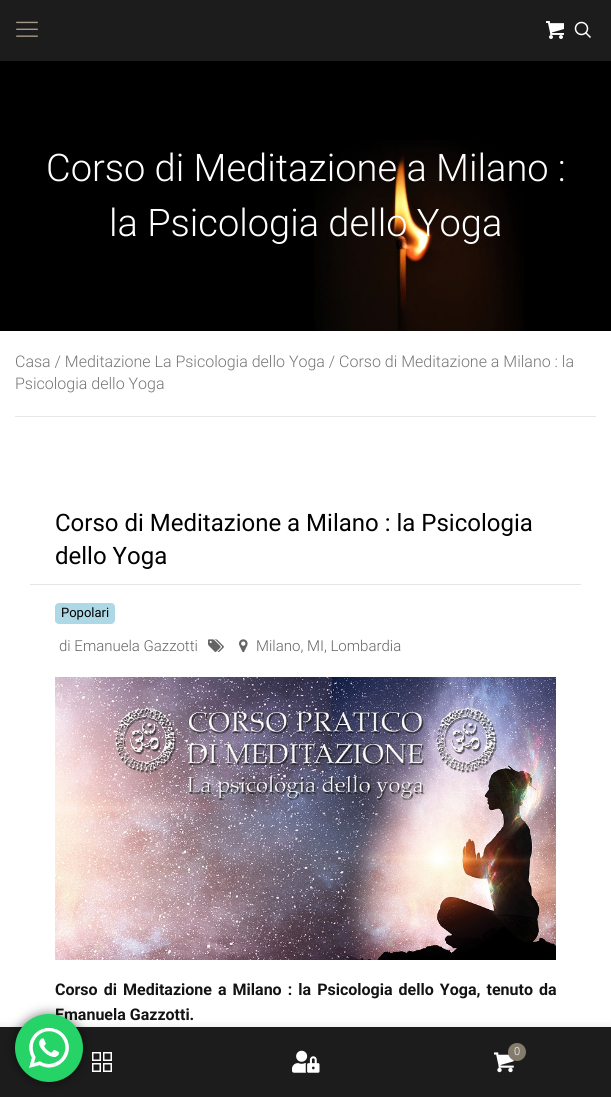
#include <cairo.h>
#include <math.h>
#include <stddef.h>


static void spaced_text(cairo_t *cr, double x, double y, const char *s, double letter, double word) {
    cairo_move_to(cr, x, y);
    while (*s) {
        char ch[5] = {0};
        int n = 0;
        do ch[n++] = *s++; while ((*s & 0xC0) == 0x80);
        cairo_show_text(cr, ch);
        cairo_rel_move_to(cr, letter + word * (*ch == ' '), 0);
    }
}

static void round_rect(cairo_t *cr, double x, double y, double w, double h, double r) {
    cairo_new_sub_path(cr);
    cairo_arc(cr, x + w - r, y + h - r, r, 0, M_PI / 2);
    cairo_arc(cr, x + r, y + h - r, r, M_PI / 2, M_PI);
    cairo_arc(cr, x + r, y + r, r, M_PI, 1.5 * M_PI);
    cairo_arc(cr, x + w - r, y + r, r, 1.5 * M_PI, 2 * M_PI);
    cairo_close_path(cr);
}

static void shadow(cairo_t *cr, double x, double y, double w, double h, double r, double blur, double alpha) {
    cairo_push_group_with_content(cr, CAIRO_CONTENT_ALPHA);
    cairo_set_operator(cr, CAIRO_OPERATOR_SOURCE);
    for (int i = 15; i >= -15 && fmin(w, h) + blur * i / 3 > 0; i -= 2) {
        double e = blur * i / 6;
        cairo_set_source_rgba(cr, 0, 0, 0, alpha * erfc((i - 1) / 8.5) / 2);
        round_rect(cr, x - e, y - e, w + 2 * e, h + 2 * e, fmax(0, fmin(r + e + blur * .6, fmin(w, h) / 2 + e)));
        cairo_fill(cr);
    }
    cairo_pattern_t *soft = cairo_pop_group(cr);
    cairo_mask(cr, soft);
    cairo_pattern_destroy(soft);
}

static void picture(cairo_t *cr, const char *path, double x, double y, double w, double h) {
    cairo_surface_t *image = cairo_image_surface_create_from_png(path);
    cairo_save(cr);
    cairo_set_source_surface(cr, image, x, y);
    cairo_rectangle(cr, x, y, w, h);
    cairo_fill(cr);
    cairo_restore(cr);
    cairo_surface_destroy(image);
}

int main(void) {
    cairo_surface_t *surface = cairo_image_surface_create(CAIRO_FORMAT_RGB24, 611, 1097);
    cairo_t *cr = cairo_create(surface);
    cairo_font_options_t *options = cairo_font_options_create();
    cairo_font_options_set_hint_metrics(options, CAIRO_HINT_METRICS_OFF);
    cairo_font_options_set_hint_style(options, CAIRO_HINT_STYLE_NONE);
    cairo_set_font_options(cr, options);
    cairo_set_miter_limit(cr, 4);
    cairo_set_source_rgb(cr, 1, 1, 1);
    cairo_paint(cr);
    cairo_set_source_rgb(cr, 0, 0, 0);
    cairo_rectangle(cr, 0, 61, 611, 270);
    cairo_fill(cr);
    cairo_set_source_rgb(cr, 0.11, 0.11, 0.11);
    cairo_rectangle(cr, 0, 0, 611, 61);
    cairo_fill(cr);
    picture(cr, "img1.png", 16, 21, 22, 16);
    picture(cr, "img2.png", 546, 21, 18, 18);
    cairo_arc(cr, 581.5, 28.5, 6, 0, 2 * M_PI);
    cairo_set_source_rgb(cr, 1, 1, 1);
    cairo_set_line_width(cr, 1.5);
    cairo_stroke(cr);
    cairo_new_path(cr);
    cairo_move_to(cr, 585.5, 32.5);
    cairo_line_to(cr, 590.5, 37.5);
    cairo_stroke(cr);
    picture(cr, "img3.png", 314, 140, 210, 191);
    cairo_select_font_face(cr, "Roboto Light", CAIRO_FONT_SLANT_NORMAL, CAIRO_FONT_WEIGHT_NORMAL);
    cairo_set_font_size(cr, 38);
    cairo_move_to(cr, 46, 181);
    cairo_show_text(cr, "Corso di Meditazione a Milano :");
    cairo_move_to(cr, 109, 236);
    cairo_show_text(cr, "la Psicologia dello Yoga");
    cairo_set_source_rgb(cr, 0.906, 0.906, 0.906);
    cairo_rectangle(cr, 15, 416, 581, 1);
    cairo_fill(cr);
    cairo_set_font_size(cr, 16);
    cairo_set_source_rgb(cr, 0.463, 0.463, 0.463);
    cairo_move_to(cr, 15, 367);
    cairo_show_text(cr, "Casa / Meditazione La Psicologia dello Yoga / Corso di Meditazione a Milano : la");
    cairo_move_to(cr, 15, 389);
    cairo_show_text(cr, "Psicologia dello Yoga");
    cairo_set_source_rgb(cr, 0.902, 0.902, 0.902);
    cairo_rectangle(cr, 30, 584, 551, 1);
    cairo_fill(cr);
    cairo_select_font_face(cr, "Roboto", CAIRO_FONT_SLANT_NORMAL, CAIRO_FONT_WEIGHT_NORMAL);
    cairo_set_font_size(cr, 24);
    cairo_set_source_rgb(cr, 0, 0, 0);
    cairo_move_to(cr, 55, 531);
    cairo_show_text(cr, "Corso di Meditazione a Milano : la Psicologia");
    cairo_move_to(cr, 55, 564);
    cairo_show_text(cr, "dello Yoga");
    cairo_set_source_rgb(cr, 0.678, 0.847, 0.902);
    round_rect(cr, 55, 603, 60, 21, 4);
    cairo_fill(cr);
    cairo_set_font_size(cr, 13);
    cairo_set_source_rgb(cr, 0, 0, 0);
    cairo_move_to(cr, 61, 617);
    cairo_show_text(cr, "Popolari");
    cairo_select_font_face(cr, "Roboto Light", CAIRO_FONT_SLANT_NORMAL, CAIRO_FONT_WEIGHT_NORMAL);
    cairo_set_font_size(cr, 15);
    cairo_set_source_rgb(cr, 0.392, 0.392, 0.392);
    cairo_move_to(cr, 59, 651);
    cairo_show_text(cr, "di Emanuela Gazzotti");
    picture(cr, "img4.png", 208, 639, 16, 13);
    picture(cr, "img5.png", 239, 639, 9, 14);
    cairo_move_to(cr, 256, 651);
    cairo_show_text(cr, "Milano, MI, Lombardia");
    picture(cr, "img6.png", 55, 677, 501, 283);
    cairo_select_font_face(cr, "Roboto", CAIRO_FONT_SLANT_NORMAL, CAIRO_FONT_WEIGHT_BOLD);
    cairo_set_font_size(cr, 16);
    cairo_set_source_rgb(cr, 0.078, 0.078, 0.078);
    spaced_text(cr, 55, 995, "Corso di Meditazione a Milano : la Psicologia dello Yoga, tenuto da", 0, 2.1);
    cairo_move_to(cr, 55, 1020);
    cairo_show_text(cr, "Emanuela Gazzotti.");
    cairo_set_source_rgb(cr, 0, 0, 0);
    shadow(cr, 0, 1027, 611, 70, 0, 5, 0.1);
    cairo_set_source_rgb(cr, 0.11, 0.11, 0.11);
    cairo_rectangle(cr, 0, 1027, 611, 70);
    cairo_fill(cr);
    cairo_rectangle(cr, 92.75, 1052.75, 7.5, 7.5);
    cairo_set_source_rgb(cr, 1, 1, 1);
    cairo_stroke(cr);
    cairo_rectangle(cr, 92.75, 1063.75, 7.5, 7.5);
    cairo_stroke(cr);
    cairo_set_source_rgb(cr, 0, 0, 0);
    shadow(cr, 15, 1014, 68, 68, 34, 5.5, 0.5);
    cairo_set_source_rgb(cr, 0.145, 0.827, 0.4);
    cairo_arc(cr, 49, 1048, 34, 0, 2 * M_PI);
    cairo_fill(cr);
    picture(cr, "img7.png", 29, 1028, 40, 40);
    cairo_rectangle(cr, 103.75, 1052.75, 7.5, 7.5);
    cairo_set_source_rgb(cr, 1, 1, 1);
    cairo_stroke(cr);
    cairo_rectangle(cr, 103.75, 1063.75, 7.5, 7.5);
    cairo_stroke(cr);
    picture(cr, "img8.png", 292, 1050, 28, 23);
    picture(cr, "img9.png", 494, 1052, 20, 21);
    cairo_set_source_rgb(cr, 0.514, 0.482, 0.42);
    cairo_arc(cr, 517, 1052, 9, 0, 2 * M_PI);
    cairo_fill(cr);
    cairo_select_font_face(cr, "Roboto Light", CAIRO_FONT_SLANT_NORMAL, CAIRO_FONT_WEIGHT_NORMAL);
    cairo_set_font_size(cr, 11);
    cairo_set_source_rgb(cr, 1, 1, 1);
    cairo_move_to(cr, 514, 1055);
    cairo_show_text(cr, "0");
    cairo_surface_write_to_png(surface, "page.png");
    cairo_font_options_destroy(options);
    cairo_destroy(cr);
    cairo_surface_destroy(surface);
    return 0;
}
